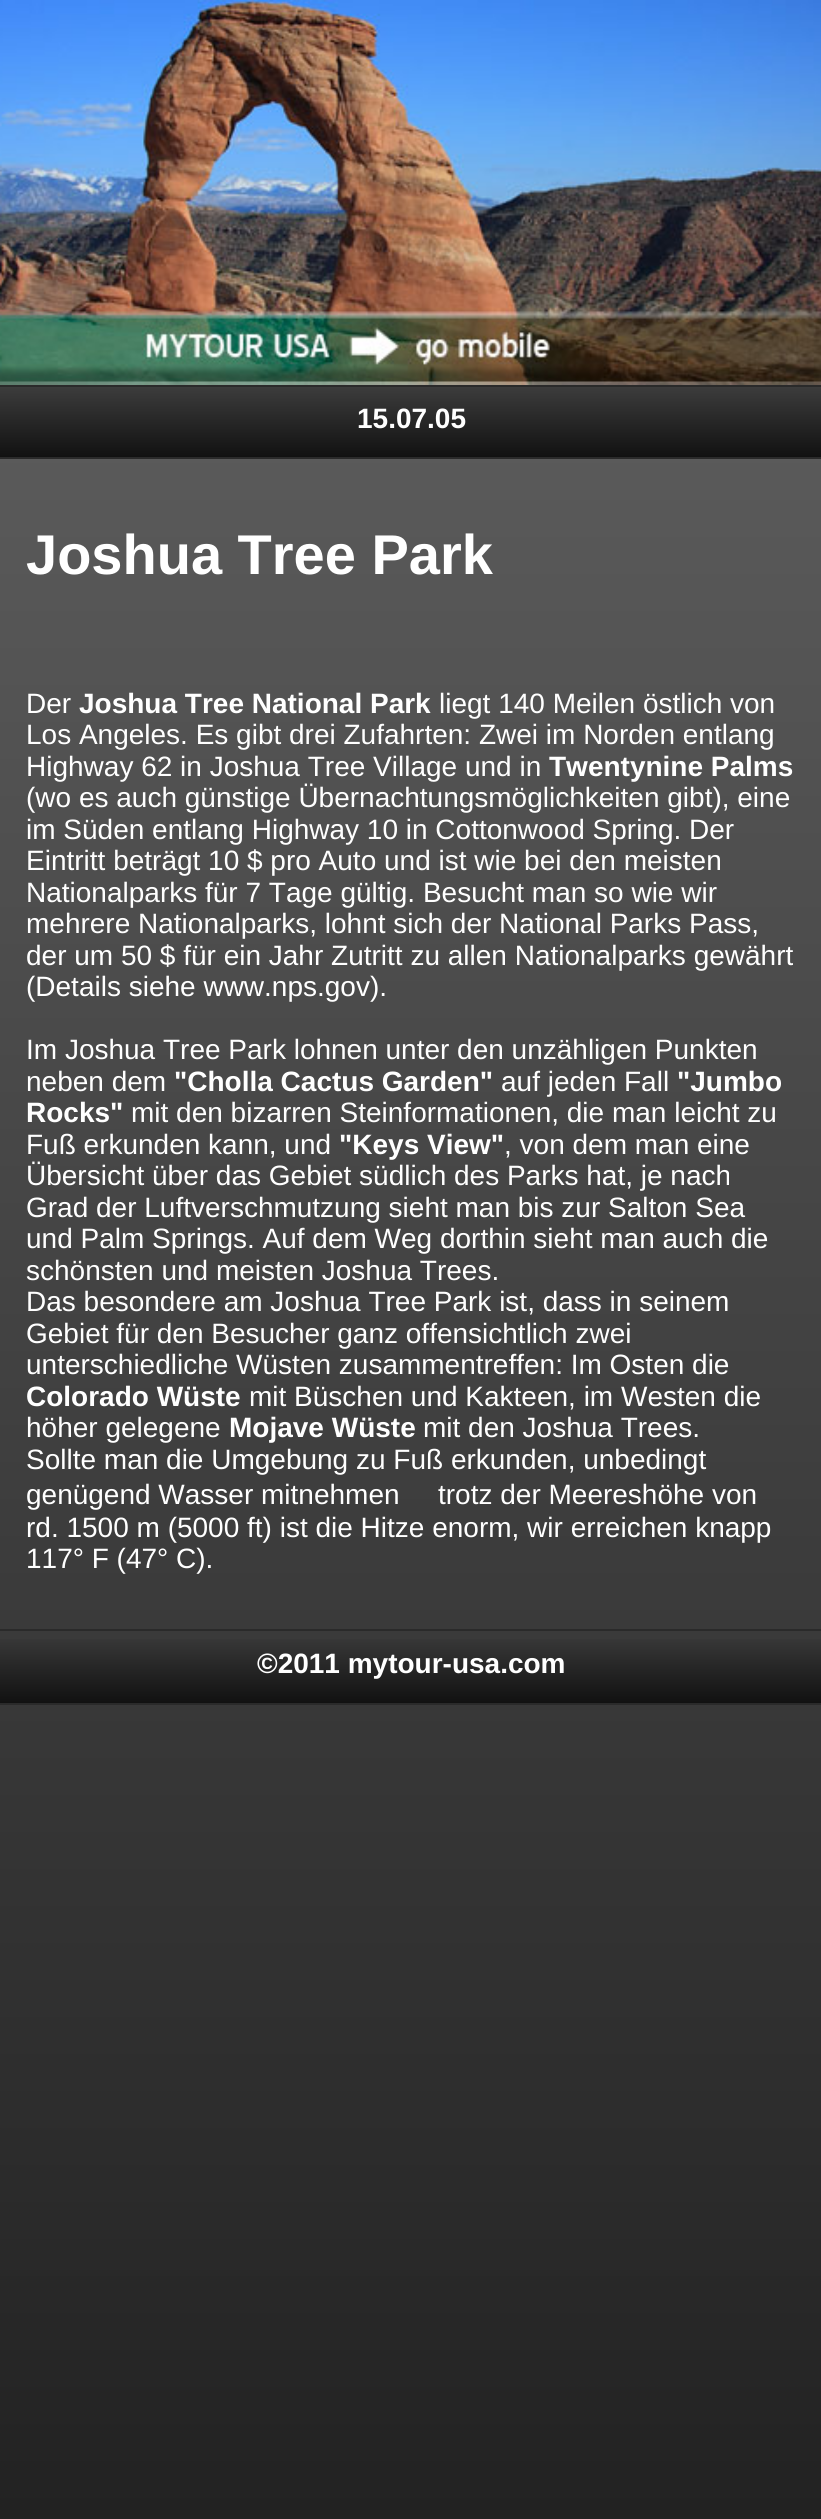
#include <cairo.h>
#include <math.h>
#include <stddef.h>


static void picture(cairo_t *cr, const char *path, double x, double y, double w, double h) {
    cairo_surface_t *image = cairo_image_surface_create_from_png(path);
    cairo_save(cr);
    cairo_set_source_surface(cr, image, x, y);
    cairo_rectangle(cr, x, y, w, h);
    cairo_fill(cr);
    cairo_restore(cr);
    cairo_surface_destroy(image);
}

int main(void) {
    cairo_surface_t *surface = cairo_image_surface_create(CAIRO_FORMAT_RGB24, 821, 2519);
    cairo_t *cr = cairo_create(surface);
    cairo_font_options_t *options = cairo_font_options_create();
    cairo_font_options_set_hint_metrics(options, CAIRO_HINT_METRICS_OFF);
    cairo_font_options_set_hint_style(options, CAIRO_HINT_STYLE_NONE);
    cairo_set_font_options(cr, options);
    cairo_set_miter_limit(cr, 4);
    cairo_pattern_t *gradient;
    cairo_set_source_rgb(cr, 1, 1, 1);
    cairo_paint(cr);
    gradient = cairo_pattern_create_linear(0, 0, 0, 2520);
    cairo_pattern_add_color_stop_rgba(gradient, 0, 0.4, 0.4, 0.4, 1);
    cairo_pattern_add_color_stop_rgba(gradient, 1, 0.133, 0.133, 0.133, 1);
    cairo_set_source(cr, gradient);
    cairo_pattern_destroy(gradient);
    cairo_rectangle(cr, 0, 459, 821, 2060);
    cairo_fill(cr);
    picture(cr, "img1.png", 0, 0, 821, 385);
    gradient = cairo_pattern_create_linear(0, 387, 0, 457);
    cairo_pattern_add_color_stop_rgba(gradient, 0, 0.235, 0.235, 0.235, 1);
    cairo_pattern_add_color_stop_rgba(gradient, 1, 0.067, 0.067, 0.067, 1);
    cairo_set_source(cr, gradient);
    cairo_pattern_destroy(gradient);
    cairo_rectangle(cr, 0, 387, 821, 70);
    cairo_fill(cr);
    cairo_set_source_rgb(cr, 0.165, 0.165, 0.165);
    cairo_rectangle(cr, 0, 385, 821, 2);
    cairo_fill(cr);
    cairo_rectangle(cr, 0, 457, 821, 2);
    cairo_fill(cr);
    cairo_select_font_face(cr, "Liberation Sans", CAIRO_FONT_SLANT_NORMAL, CAIRO_FONT_WEIGHT_BOLD);
    cairo_set_font_size(cr, 28);
    cairo_set_source_rgb(cr, 1, 1, 1);
    cairo_move_to(cr, 357, 428);
    cairo_show_text(cr, "15.07.05");
    cairo_set_font_size(cr, 56);
    cairo_move_to(cr, 26, 574);
    cairo_show_text(cr, "Joshua Tree Park");
    cairo_select_font_face(cr, "Liberation Sans", CAIRO_FONT_SLANT_NORMAL, CAIRO_FONT_WEIGHT_NORMAL);
    cairo_set_font_size(cr, 28);
    cairo_move_to(cr, 26, 713);
    cairo_show_text(cr, "Der");
    cairo_select_font_face(cr, "Liberation Sans", CAIRO_FONT_SLANT_NORMAL, CAIRO_FONT_WEIGHT_BOLD);
    cairo_move_to(cr, 79, 713);
    cairo_show_text(cr, "Joshua Tree National Park");
    cairo_select_font_face(cr, "Liberation Sans", CAIRO_FONT_SLANT_NORMAL, CAIRO_FONT_WEIGHT_NORMAL);
    cairo_move_to(cr, 439, 713);
    cairo_show_text(cr, "liegt 140 Meilen östlich von");
    cairo_move_to(cr, 26, 744);
    cairo_show_text(cr, "Los Angeles. Es gibt drei Zufahrten: Zwei im Norden entlang");
    cairo_move_to(cr, 26, 776);
    cairo_show_text(cr, "Highway 62 in Joshua Tree Village und in");
    cairo_select_font_face(cr, "Liberation Sans", CAIRO_FONT_SLANT_NORMAL, CAIRO_FONT_WEIGHT_BOLD);
    cairo_move_to(cr, 549, 776);
    cairo_show_text(cr, "Twentynine Palms");
    cairo_select_font_face(cr, "Liberation Sans", CAIRO_FONT_SLANT_NORMAL, CAIRO_FONT_WEIGHT_NORMAL);
    cairo_move_to(cr, 26, 807);
    cairo_show_text(cr, "(wo es auch günstige Übernachtungsmöglichkeiten gibt), eine");
    cairo_move_to(cr, 26, 839);
    cairo_show_text(cr, "im Süden entlang Highway 10 in Cottonwood Spring. Der");
    cairo_move_to(cr, 26, 870);
    cairo_show_text(cr, "Eintritt beträgt 10 $ pro Auto und ist wie bei den meisten");
    cairo_move_to(cr, 26, 902);
    cairo_show_text(cr, "Nationalparks für 7 Tage gültig. Besucht man so wie wir");
    cairo_move_to(cr, 26, 933);
    cairo_show_text(cr, "mehrere Nationalparks, lohnt sich der National Parks Pass,");
    cairo_move_to(cr, 26, 965);
    cairo_show_text(cr, "der um 50 $ für ein Jahr Zutritt zu allen Nationalparks gewährt");
    cairo_move_to(cr, 26, 996);
    cairo_show_text(cr, "(Details siehe www.nps.gov).");
    cairo_move_to(cr, 26, 1059);
    cairo_show_text(cr, "Im Joshua Tree Park lohnen unter den unzähligen Punkten");
    cairo_move_to(cr, 26, 1091);
    cairo_show_text(cr, "neben dem");
    cairo_select_font_face(cr, "Liberation Sans", CAIRO_FONT_SLANT_NORMAL, CAIRO_FONT_WEIGHT_BOLD);
    cairo_move_to(cr, 174, 1091);
    cairo_show_text(cr, "\"Cholla Cactus Garden\"");
    cairo_select_font_face(cr, "Liberation Sans", CAIRO_FONT_SLANT_NORMAL, CAIRO_FONT_WEIGHT_NORMAL);
    cairo_move_to(cr, 501, 1091);
    cairo_show_text(cr, "auf jeden Fall");
    cairo_select_font_face(cr, "Liberation Sans", CAIRO_FONT_SLANT_NORMAL, CAIRO_FONT_WEIGHT_BOLD);
    cairo_move_to(cr, 677, 1091);
    cairo_show_text(cr, "\"Jumbo");
    cairo_move_to(cr, 26, 1122);
    cairo_show_text(cr, "Rocks\"");
    cairo_select_font_face(cr, "Liberation Sans", CAIRO_FONT_SLANT_NORMAL, CAIRO_FONT_WEIGHT_NORMAL);
    cairo_move_to(cr, 131, 1122);
    cairo_show_text(cr, "mit den bizarren Steinformationen, die man leicht zu");
    cairo_move_to(cr, 26, 1154);
    cairo_show_text(cr, "Fuß erkunden kann, und");
    cairo_select_font_face(cr, "Liberation Sans", CAIRO_FONT_SLANT_NORMAL, CAIRO_FONT_WEIGHT_BOLD);
    cairo_move_to(cr, 339, 1154);
    cairo_show_text(cr, "\"Keys View\"");
    cairo_select_font_face(cr, "Liberation Sans", CAIRO_FONT_SLANT_NORMAL, CAIRO_FONT_WEIGHT_NORMAL);
    cairo_move_to(cr, 504, 1154);
    cairo_show_text(cr, ", von dem man eine");
    cairo_move_to(cr, 26, 1185);
    cairo_show_text(cr, "Übersicht über das Gebiet südlich des Parks hat, je nach");
    cairo_move_to(cr, 26, 1217);
    cairo_show_text(cr, "Grad der Luftverschmutzung sieht man bis zur Salton Sea");
    cairo_move_to(cr, 26, 1248);
    cairo_show_text(cr, "und Palm Springs. Auf dem Weg dorthin sieht man auch die");
    cairo_move_to(cr, 26, 1280);
    cairo_show_text(cr, "schönsten und meisten Joshua Trees.");
    cairo_move_to(cr, 26, 1311);
    cairo_show_text(cr, "Das besondere am Joshua Tree Park ist, dass in seinem");
    cairo_move_to(cr, 26, 1343);
    cairo_show_text(cr, "Gebiet für den Besucher ganz offensichtlich zwei");
    cairo_move_to(cr, 26, 1374);
    cairo_show_text(cr, "unterschiedliche Wüsten zusammentreffen: Im Osten die");
    cairo_select_font_face(cr, "Liberation Sans", CAIRO_FONT_SLANT_NORMAL, CAIRO_FONT_WEIGHT_BOLD);
    cairo_move_to(cr, 26, 1406);
    cairo_show_text(cr, "Colorado Wüste");
    cairo_select_font_face(cr, "Liberation Sans", CAIRO_FONT_SLANT_NORMAL, CAIRO_FONT_WEIGHT_NORMAL);
    cairo_move_to(cr, 249, 1406);
    cairo_show_text(cr, "mit Büschen und Kakteen, im Westen die");
    cairo_move_to(cr, 26, 1437);
    cairo_show_text(cr, "höher gelegene");
    cairo_select_font_face(cr, "Liberation Sans", CAIRO_FONT_SLANT_NORMAL, CAIRO_FONT_WEIGHT_BOLD);
    cairo_move_to(cr, 229, 1437);
    cairo_show_text(cr, "Mojave Wüste");
    cairo_select_font_face(cr, "Liberation Sans", CAIRO_FONT_SLANT_NORMAL, CAIRO_FONT_WEIGHT_NORMAL);
    cairo_move_to(cr, 423, 1437);
    cairo_show_text(cr, "mit den Joshua Trees.");
    cairo_move_to(cr, 26, 1469);
    cairo_show_text(cr, "Sollte man die Umgebung zu Fuß erkunden, unbedingt");
    cairo_move_to(cr, 26, 1504);
    cairo_show_text(cr, "genügend Wasser mitnehmen");
    cairo_move_to(cr, 438, 1504);
    cairo_show_text(cr, "trotz der Meereshöhe von");
    cairo_move_to(cr, 26, 1537);
    cairo_show_text(cr, "rd. 1500 m (5000 ft) ist die Hitze enorm, wir erreichen knapp");
    cairo_move_to(cr, 26, 1568);
    cairo_show_text(cr, "117° F (47° C).");
    gradient = cairo_pattern_create_linear(0, 1631, 0, 1703);
    cairo_pattern_add_color_stop_rgba(gradient, 0, 0.235, 0.235, 0.235, 1);
    cairo_pattern_add_color_stop_rgba(gradient, 1, 0.067, 0.067, 0.067, 1);
    cairo_set_source(cr, gradient);
    cairo_pattern_destroy(gradient);
    cairo_rectangle(cr, 0, 1639, 821, 64);
    cairo_fill(cr);
    cairo_set_source_rgb(cr, 0.165, 0.165, 0.165);
    cairo_rectangle(cr, 0, 1629, 821, 2);
    cairo_fill(cr);
    cairo_rectangle(cr, 0, 1703, 821, 2);
    cairo_fill(cr);
    cairo_select_font_face(cr, "Liberation Sans", CAIRO_FONT_SLANT_NORMAL, CAIRO_FONT_WEIGHT_BOLD);
    cairo_set_source_rgb(cr, 1, 1, 1);
    cairo_move_to(cr, 257, 1673);
    cairo_show_text(cr, "©2011 mytour-usa.com");
    cairo_surface_write_to_png(surface, "page.png");
    cairo_font_options_destroy(options);
    cairo_destroy(cr);
    cairo_surface_destroy(surface);
    return 0;
}
